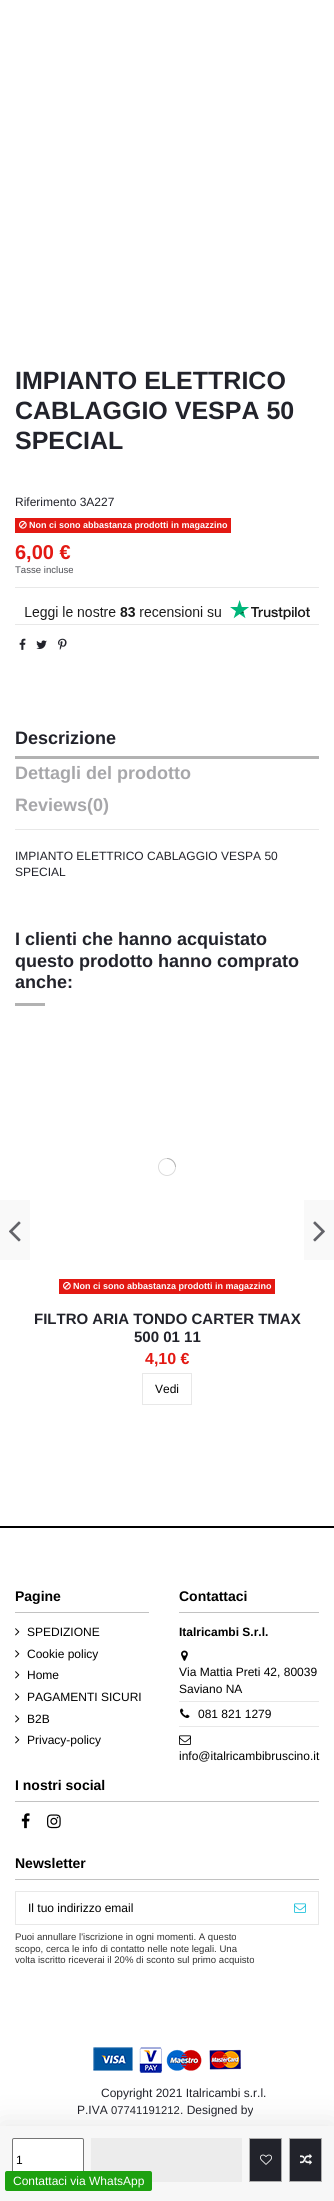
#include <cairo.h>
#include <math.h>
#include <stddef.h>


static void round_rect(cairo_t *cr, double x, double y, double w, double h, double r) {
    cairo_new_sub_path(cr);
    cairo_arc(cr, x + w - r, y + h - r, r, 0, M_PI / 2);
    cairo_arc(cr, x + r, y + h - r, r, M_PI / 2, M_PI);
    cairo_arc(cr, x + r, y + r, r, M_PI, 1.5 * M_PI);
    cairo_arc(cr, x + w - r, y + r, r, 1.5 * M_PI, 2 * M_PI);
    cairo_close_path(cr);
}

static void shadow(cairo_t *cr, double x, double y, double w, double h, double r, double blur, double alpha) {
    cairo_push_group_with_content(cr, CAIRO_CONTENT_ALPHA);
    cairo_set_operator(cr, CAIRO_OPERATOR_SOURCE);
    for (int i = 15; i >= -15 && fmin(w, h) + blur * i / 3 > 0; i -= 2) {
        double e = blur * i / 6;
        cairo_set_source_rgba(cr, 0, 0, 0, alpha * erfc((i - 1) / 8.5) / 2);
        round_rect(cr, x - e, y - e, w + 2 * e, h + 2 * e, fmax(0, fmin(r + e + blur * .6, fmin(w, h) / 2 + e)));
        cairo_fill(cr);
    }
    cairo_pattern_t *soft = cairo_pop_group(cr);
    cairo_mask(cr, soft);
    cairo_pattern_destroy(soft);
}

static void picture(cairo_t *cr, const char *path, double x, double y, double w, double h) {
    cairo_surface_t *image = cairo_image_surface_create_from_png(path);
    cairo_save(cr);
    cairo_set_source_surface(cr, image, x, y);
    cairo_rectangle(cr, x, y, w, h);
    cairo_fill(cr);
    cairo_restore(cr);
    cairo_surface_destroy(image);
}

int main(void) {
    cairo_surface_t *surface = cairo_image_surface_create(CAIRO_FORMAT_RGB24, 334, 2201);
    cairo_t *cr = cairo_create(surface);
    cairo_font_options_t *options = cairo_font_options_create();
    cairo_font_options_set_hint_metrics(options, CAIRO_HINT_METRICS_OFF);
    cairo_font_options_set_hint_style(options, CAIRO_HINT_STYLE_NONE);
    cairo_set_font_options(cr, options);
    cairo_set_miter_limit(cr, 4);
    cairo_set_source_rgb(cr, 1, 1, 1);
    cairo_paint(cr);
    cairo_set_source_rgb(cr, 0.91, 0.91, 0.91);
    cairo_rectangle(cr, 15, 587, 304, 1);
    cairo_fill(cr);
    cairo_select_font_face(cr, "Liberation Sans", CAIRO_FONT_SLANT_NORMAL, CAIRO_FONT_WEIGHT_BOLD);
    cairo_set_font_size(cr, 25);
    cairo_set_source_rgb(cr, 0.133, 0.137, 0.169);
    cairo_move_to(cr, 15, 389);
    cairo_show_text(cr, "IMPIANTO ELETTRICO");
    cairo_move_to(cr, 15, 419);
    cairo_show_text(cr, "CABLAGGIO VESPA 50");
    cairo_move_to(cr, 15, 449);
    cairo_show_text(cr, "SPECIAL");
    cairo_select_font_face(cr, "Liberation Sans", CAIRO_FONT_SLANT_NORMAL, CAIRO_FONT_WEIGHT_NORMAL);
    cairo_set_font_size(cr, 12);
    cairo_move_to(cr, 15, 506);
    cairo_show_text(cr, "Riferimento 3A227");
    cairo_set_source_rgb(cr, 0.89, 0.098, 0.075);
    cairo_rectangle(cr, 15, 518, 216, 15);
    cairo_fill(cr);
    picture(cr, "img1.png", 19, 520, 8, 9);
    cairo_select_font_face(cr, "Liberation Sans", CAIRO_FONT_SLANT_NORMAL, CAIRO_FONT_WEIGHT_BOLD);
    cairo_set_font_size(cr, 9);
    cairo_set_source_rgb(cr, 1, 1, 1);
    cairo_move_to(cr, 29, 528);
    cairo_show_text(cr, "Non ci sono abbastanza prodotti in magazzino");
    cairo_set_font_size(cr, 20);
    cairo_set_source_rgb(cr, 0.89, 0.098, 0.075);
    cairo_move_to(cr, 15, 559);
    cairo_show_text(cr, "6,00 €");
    cairo_select_font_face(cr, "Liberation Sans", CAIRO_FONT_SLANT_NORMAL, CAIRO_FONT_WEIGHT_NORMAL);
    cairo_set_font_size(cr, 9.6);
    cairo_set_source_rgb(cr, 0.306, 0.31, 0.333);
    cairo_move_to(cr, 15, 573);
    cairo_show_text(cr, "Tasse incluse");
    picture(cr, "img2.png", 25, 600, 285, 20);
    cairo_set_source_rgb(cr, 0.91, 0.91, 0.91);
    cairo_rectangle(cr, 15, 624, 304, 1);
    cairo_fill(cr);
    picture(cr, "img3.png", 19, 638, 7, 12);
    picture(cr, "img4.png", 36, 640, 11, 9);
    picture(cr, "img5.png", 58, 638, 9, 12);
    cairo_set_source_rgb(cr, 0, 0, 0);
    shadow(cr, 0, 2122, 334, 75, 0, 15, 0.09);
    cairo_set_source_rgb(cr, 0.965, 0.965, 0.965);
    cairo_rectangle(cr, 0, 2126, 334, 75);
    cairo_fill(cr);
    cairo_set_source_rgb(cr, 1, 1, 1);
    round_rect(cr, 12.5, 2138.5, 71, 43, 1.5);
    cairo_fill_preserve(cr);
    cairo_set_source_rgb(cr, 0.463, 0.463, 0.463);
    cairo_set_line_width(cr, 1);
    cairo_stroke(cr);
    cairo_set_font_size(cr, 12);
    cairo_set_source_rgb(cr, 0, 0, 0);
    cairo_move_to(cr, 16, 2164);
    cairo_show_text(cr, "1");
    cairo_set_source_rgb(cr, 0.922, 0.922, 0.925);
    cairo_rectangle(cr, 91, 2138, 151, 44);
    cairo_fill(cr);
    cairo_set_source_rgb(cr, 0.133, 0.137, 0.169);
    cairo_rectangle(cr, 249.5, 2138.5, 32, 43);
    cairo_fill_preserve(cr);
    cairo_set_source_rgb(cr, 0.678, 0.678, 0.678);
    cairo_stroke(cr);
    picture(cr, "img6.png", 260, 2154, 12, 11);
    cairo_set_source_rgb(cr, 0.133, 0.137, 0.169);
    cairo_rectangle(cr, 289.5, 2138.5, 32, 43);
    cairo_fill_preserve(cr);
    cairo_set_source_rgb(cr, 0.678, 0.678, 0.678);
    cairo_stroke(cr);
    picture(cr, "img7.png", 300, 2154, 12, 11);
    cairo_set_source_rgb(cr, 0.91, 0.91, 0.91);
    cairo_rectangle(cr, 15, 829, 304, 1);
    cairo_fill(cr);
    cairo_set_source_rgb(cr, 0.698, 0.698, 0.698);
    cairo_rectangle(cr, 15, 756, 304, 3);
    cairo_fill(cr);
    cairo_select_font_face(cr, "Liberation Sans", CAIRO_FONT_SLANT_NORMAL, CAIRO_FONT_WEIGHT_BOLD);
    cairo_set_font_size(cr, 18);
    cairo_set_source_rgb(cr, 0.133, 0.137, 0.169);
    cairo_move_to(cr, 15, 744);
    cairo_show_text(cr, "Descrizione");
    cairo_set_source_rgb(cr, 0.655, 0.655, 0.667);
    cairo_move_to(cr, 15, 779);
    cairo_show_text(cr, "Dettagli del prodotto");
    cairo_move_to(cr, 15, 811);
    cairo_show_text(cr, "Reviews(0)");
    cairo_select_font_face(cr, "Liberation Sans", CAIRO_FONT_SLANT_NORMAL, CAIRO_FONT_WEIGHT_NORMAL);
    cairo_set_font_size(cr, 12);
    cairo_set_source_rgb(cr, 0.133, 0.137, 0.169);
    cairo_move_to(cr, 15, 860);
    cairo_show_text(cr, "IMPIANTO ELETTRICO CABLAGGIO VESPA 50");
    cairo_move_to(cr, 15, 876);
    cairo_show_text(cr, "SPECIAL");
    cairo_select_font_face(cr, "Liberation Sans", CAIRO_FONT_SLANT_NORMAL, CAIRO_FONT_WEIGHT_BOLD);
    cairo_set_font_size(cr, 18);
    cairo_move_to(cr, 15, 945);
    cairo_show_text(cr, "I clienti che hanno acquistato");
    cairo_move_to(cr, 15, 967);
    cairo_show_text(cr, "questo prodotto hanno comprato");
    cairo_move_to(cr, 15, 988);
    cairo_show_text(cr, "anche:");
    cairo_set_source_rgb(cr, 0.698, 0.698, 0.698);
    cairo_rectangle(cr, 15, 1003, 30, 3);
    cairo_fill(cr);
    cairo_set_source_rgb(cr, 0.976, 0.976, 0.976);
    cairo_rectangle(cr, 0, 1200, 30, 60);
    cairo_fill(cr);
    picture(cr, "img8.png", 9, 1221, 12, 21);
    cairo_rectangle(cr, 304, 1200, 30, 60);
    cairo_fill(cr);
    picture(cr, "img9.png", 313, 1221, 12, 21);
    cairo_arc(cr, 167, 1167, 8.5, 0, 2 * M_PI);
    cairo_set_source_rgb(cr, 0.851, 0.851, 0.851);
    cairo_set_line_width(cr, 0.9);
    cairo_stroke(cr);
    cairo_new_path(cr);
    cairo_move_to(cr, 175.5, 1167);
    cairo_curve_to(cr, 175.5, 1162.5, 171.5, 1158.5, 167, 1158.5);
    cairo_set_source_rgb(cr, 0.702, 0.702, 0.702);
    cairo_stroke(cr);
    cairo_set_source_rgb(cr, 0.89, 0.098, 0.075);
    cairo_rectangle(cr, 59, 1279, 216, 15);
    cairo_fill(cr);
    picture(cr, "img10.png", 63, 1281, 8, 9);
    cairo_set_font_size(cr, 9);
    cairo_set_source_rgb(cr, 1, 1, 1);
    cairo_move_to(cr, 73, 1289);
    cairo_show_text(cr, "Non ci sono abbastanza prodotti in magazzino");
    cairo_set_font_size(cr, 15);
    cairo_set_source_rgb(cr, 0.133, 0.137, 0.169);
    cairo_move_to(cr, 34, 1324);
    cairo_show_text(cr, "FILTRO ARIA TONDO CARTER TMAX");
    cairo_move_to(cr, 134, 1342);
    cairo_show_text(cr, "500 01 11");
    cairo_set_font_size(cr, 16);
    cairo_set_source_rgb(cr, 0.89, 0.098, 0.075);
    cairo_move_to(cr, 145, 1364);
    cairo_show_text(cr, "4,10 €");
    cairo_rectangle(cr, 142.5, 1373.5, 49, 31);
    cairo_set_source_rgb(cr, 0.91, 0.91, 0.91);
    cairo_set_line_width(cr, 1);
    cairo_stroke(cr);
    cairo_select_font_face(cr, "Liberation Sans", CAIRO_FONT_SLANT_NORMAL, CAIRO_FONT_WEIGHT_NORMAL);
    cairo_set_font_size(cr, 12);
    cairo_set_source_rgb(cr, 0, 0, 0);
    cairo_move_to(cr, 155, 1393);
    cairo_show_text(cr, "Vedi");
    cairo_rectangle(cr, 0, 1526, 334, 2);
    cairo_fill(cr);
    cairo_set_source_rgb(cr, 0.761, 0.761, 0.761);
    cairo_rectangle(cr, 15, 1612, 134, 1);
    cairo_fill(cr);
    cairo_select_font_face(cr, "Liberation Sans", CAIRO_FONT_SLANT_NORMAL, CAIRO_FONT_WEIGHT_BOLD);
    cairo_set_font_size(cr, 14);
    cairo_set_source_rgb(cr, 0, 0, 0);
    cairo_move_to(cr, 15, 1601);
    cairo_show_text(cr, "Pagine");
    picture(cr, "img11.png", 15, 1628, 5, 8);
    cairo_select_font_face(cr, "Liberation Sans", CAIRO_FONT_SLANT_NORMAL, CAIRO_FONT_WEIGHT_NORMAL);
    cairo_set_font_size(cr, 12);
    cairo_move_to(cr, 27, 1636);
    cairo_show_text(cr, "SPEDIZIONE");
    picture(cr, "img11.png", 15, 1650, 5, 8);
    cairo_move_to(cr, 27, 1658);
    cairo_show_text(cr, "Cookie policy");
    picture(cr, "img11.png", 15, 1671, 5, 8);
    cairo_move_to(cr, 27, 1679);
    cairo_show_text(cr, "Home");
    picture(cr, "img11.png", 15, 1693, 5, 8);
    cairo_move_to(cr, 27, 1701);
    cairo_show_text(cr, "PAGAMENTI SICURI");
    picture(cr, "img11.png", 15, 1715, 5, 8);
    cairo_move_to(cr, 27, 1723);
    cairo_show_text(cr, "B2B");
    picture(cr, "img11.png", 15, 1736, 5, 8);
    cairo_move_to(cr, 27, 1744);
    cairo_show_text(cr, "Privacy-policy");
    cairo_set_source_rgb(cr, 0.761, 0.761, 0.761);
    cairo_rectangle(cr, 179, 1612, 140, 1);
    cairo_fill(cr);
    cairo_select_font_face(cr, "Liberation Sans", CAIRO_FONT_SLANT_NORMAL, CAIRO_FONT_WEIGHT_BOLD);
    cairo_set_font_size(cr, 14);
    cairo_set_source_rgb(cr, 0, 0, 0);
    cairo_move_to(cr, 179, 1601);
    cairo_show_text(cr, "Contattaci");
    cairo_set_font_size(cr, 12);
    cairo_move_to(cr, 179, 1636);
    cairo_show_text(cr, "Italricambi S.r.l.");
    picture(cr, "img12.png", 181, 1650, 7, 11);
    cairo_select_font_face(cr, "Liberation Sans", CAIRO_FONT_SLANT_NORMAL, CAIRO_FONT_WEIGHT_NORMAL);
    cairo_move_to(cr, 179, 1676);
    cairo_show_text(cr, "Via Mattia Preti 42, 80039");
    cairo_move_to(cr, 179, 1693);
    cairo_show_text(cr, "Saviano NA");
    cairo_set_source_rgb(cr, 0.91, 0.91, 0.91);
    cairo_rectangle(cr, 179, 1701, 140, 1);
    cairo_fill(cr);
    picture(cr, "img13.png", 180, 1708, 10, 10);
    cairo_set_source_rgb(cr, 0, 0, 0);
    cairo_move_to(cr, 198, 1718);
    cairo_show_text(cr, "081 821 1279");
    cairo_set_source_rgb(cr, 0.91, 0.91, 0.91);
    cairo_rectangle(cr, 179, 1726, 140, 1);
    cairo_fill(cr);
    picture(cr, "img14.png", 179, 1735, 12, 10);
    cairo_set_source_rgb(cr, 0, 0, 0);
    cairo_move_to(cr, 179, 1760);
    cairo_show_text(cr, "info@italricambibruscino.it");
    cairo_set_source_rgb(cr, 0.761, 0.761, 0.761);
    cairo_rectangle(cr, 15, 1801, 304, 1);
    cairo_fill(cr);
    cairo_select_font_face(cr, "Liberation Sans", CAIRO_FONT_SLANT_NORMAL, CAIRO_FONT_WEIGHT_BOLD);
    cairo_set_font_size(cr, 14);
    cairo_set_source_rgb(cr, 0, 0, 0);
    cairo_move_to(cr, 15, 1790);
    cairo_show_text(cr, "I nostri social");
    picture(cr, "img15.png", 21, 1813, 9, 16);
    picture(cr, "img16.png", 47, 1814, 14, 15);
    cairo_set_source_rgb(cr, 0.761, 0.761, 0.761);
    cairo_rectangle(cr, 15, 1879, 304, 1);
    cairo_fill(cr);
    cairo_set_source_rgb(cr, 0, 0, 0);
    cairo_move_to(cr, 15, 1868);
    cairo_show_text(cr, "Newsletter");
    cairo_rectangle(cr, 15.5, 1891.5, 303, 33);
    cairo_set_source_rgb(cr, 0.91, 0.91, 0.91);
    cairo_stroke(cr);
    cairo_select_font_face(cr, "Liberation Sans", CAIRO_FONT_SLANT_NORMAL, CAIRO_FONT_WEIGHT_NORMAL);
    cairo_set_font_size(cr, 12);
    cairo_set_source_rgb(cr, 0, 0, 0);
    cairo_move_to(cr, 28, 1912);
    cairo_show_text(cr, "Il tuo indirizzo email");
    picture(cr, "img17.png", 294, 1903, 12, 10);
    cairo_set_font_size(cr, 9.6);
    cairo_set_source_rgb(cr, 0.2, 0.2, 0.2);
    cairo_move_to(cr, 15, 1940);
    cairo_show_text(cr, "Puoi annullare l'iscrizione in ogni momenti. A questo");
    cairo_move_to(cr, 15, 1952);
    cairo_show_text(cr, "scopo, cerca le info di contatto nelle note legali. Una");
    cairo_move_to(cr, 15, 1963);
    cairo_show_text(cr, "volta iscritto riceverai il 20% di sconto sul primo acquisto");
    cairo_set_source_rgb(cr, 0.114, 0.631, 0.063);
    round_rect(cr, 5, 2171, 147, 20, 2);
    cairo_fill(cr);
    cairo_set_font_size(cr, 12);
    cairo_set_source_rgb(cr, 1, 1, 1);
    cairo_move_to(cr, 13, 2185);
    cairo_show_text(cr, "Contattaci via WhatsApp");
    picture(cr, "img18.png", 93, 2047, 148, 26);
    cairo_set_source_rgb(cr, 0.133, 0.137, 0.169);
    cairo_move_to(cr, 101, 2097);
    cairo_show_text(cr, "Copyright 2021 Italricambi s.r.l.");
    cairo_move_to(cr, 77, 2114);
    cairo_show_text(cr, "P.IVA");
    cairo_set_font_size(cr, 11.25);
    cairo_move_to(cr, 111, 2114);
    cairo_show_text(cr, "07741191212");
    cairo_set_font_size(cr, 12);
    cairo_move_to(cr, 180, 2114);
    cairo_show_text(cr, ". Designed by");
    cairo_surface_write_to_png(surface, "page.png");
    cairo_font_options_destroy(options);
    cairo_destroy(cr);
    cairo_surface_destroy(surface);
    return 0;
}
